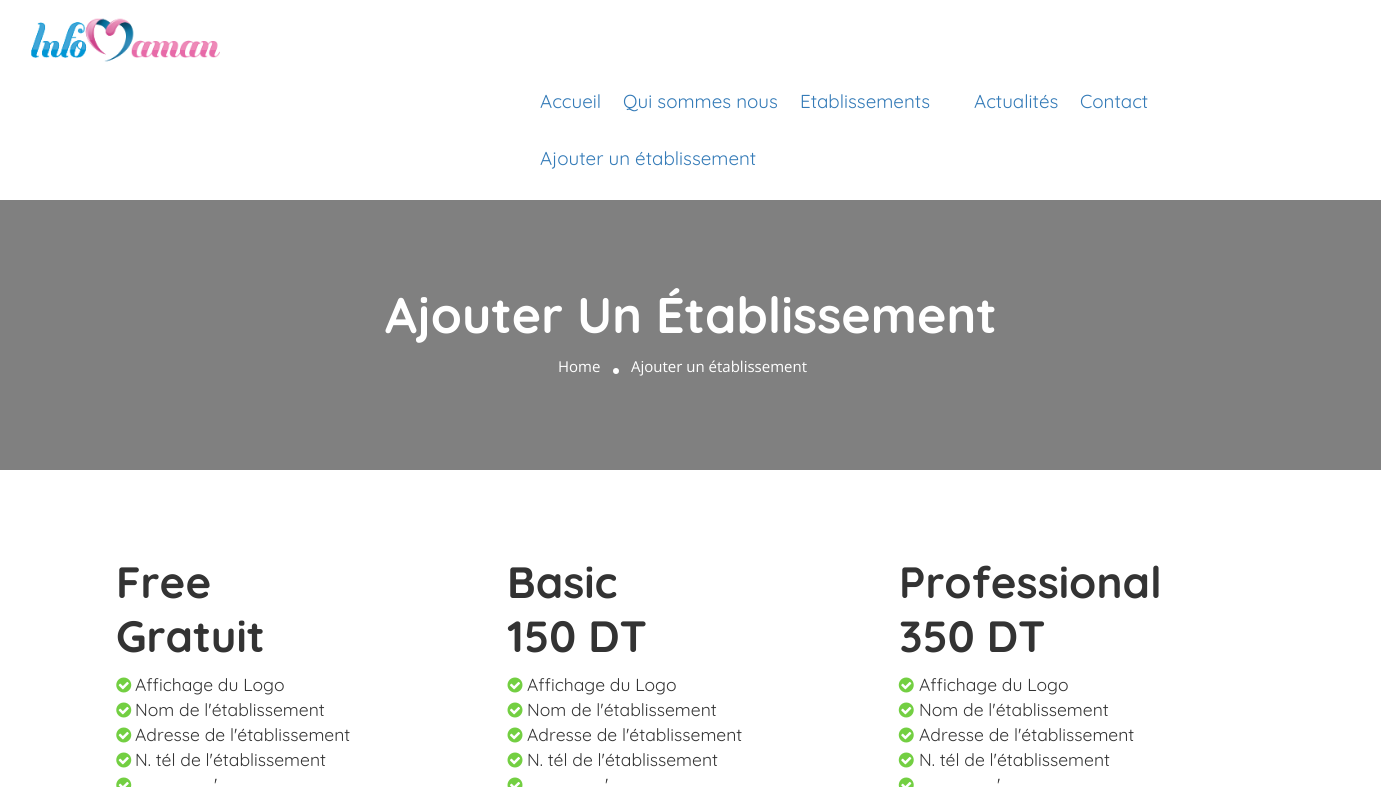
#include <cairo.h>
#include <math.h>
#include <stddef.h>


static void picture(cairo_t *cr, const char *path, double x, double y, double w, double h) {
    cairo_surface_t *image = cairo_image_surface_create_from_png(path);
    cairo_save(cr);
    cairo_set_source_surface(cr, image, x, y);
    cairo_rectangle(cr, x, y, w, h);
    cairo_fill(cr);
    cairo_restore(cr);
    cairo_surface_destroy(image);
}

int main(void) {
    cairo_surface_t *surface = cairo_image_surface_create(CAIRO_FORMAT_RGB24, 1381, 787);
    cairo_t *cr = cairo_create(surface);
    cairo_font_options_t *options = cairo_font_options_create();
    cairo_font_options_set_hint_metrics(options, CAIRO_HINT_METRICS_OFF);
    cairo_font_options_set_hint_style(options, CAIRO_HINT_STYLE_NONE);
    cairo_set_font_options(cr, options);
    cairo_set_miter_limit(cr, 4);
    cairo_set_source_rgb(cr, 1, 1, 1);
    cairo_paint(cr);
    picture(cr, "img1.png", 31, 18, 189, 44);
    cairo_select_font_face(cr, "Quicksand", CAIRO_FONT_SLANT_NORMAL, CAIRO_FONT_WEIGHT_NORMAL);
    cairo_set_font_size(cr, 18.75);
    cairo_set_source_rgb(cr, 0.2, 0.478, 0.718);
    cairo_move_to(cr, 540, 108);
    cairo_show_text(cr, "Accueil");
    cairo_move_to(cr, 623, 108);
    cairo_show_text(cr, "Qui sommes nous");
    cairo_move_to(cr, 800, 108);
    cairo_show_text(cr, "Etablissements");
    cairo_move_to(cr, 974, 108);
    cairo_show_text(cr, "Actualités");
    cairo_move_to(cr, 1080, 108);
    cairo_show_text(cr, "Contact");
    cairo_move_to(cr, 540, 165);
    cairo_show_text(cr, "Ajouter un établissement");
    cairo_set_source_rgb(cr, 0.502, 0.502, 0.502);
    cairo_rectangle(cr, 0, 200, 1381, 270);
    cairo_fill(cr);
    cairo_select_font_face(cr, "Quicksand", CAIRO_FONT_SLANT_NORMAL, CAIRO_FONT_WEIGHT_BOLD);
    cairo_set_font_size(cr, 50);
    cairo_set_source_rgb(cr, 1, 1, 1);
    cairo_move_to(cr, 385, 333);
    cairo_show_text(cr, "Ajouter Un Établissement");
    cairo_select_font_face(cr, "Open Sans", CAIRO_FONT_SLANT_NORMAL, CAIRO_FONT_WEIGHT_NORMAL);
    cairo_set_font_size(cr, 15);
    cairo_move_to(cr, 558, 372);
    cairo_show_text(cr, "Home");
    cairo_new_path(cr);
    cairo_arc(cr, 616, 371, 3, 0, 2 * M_PI);
    cairo_fill(cr);
    cairo_move_to(cr, 631, 372);
    cairo_show_text(cr, "Ajouter un établissement");
    cairo_select_font_face(cr, "Quicksand", CAIRO_FONT_SLANT_NORMAL, CAIRO_FONT_WEIGHT_BOLD);
    cairo_set_font_size(cr, 43.75);
    cairo_set_source_rgb(cr, 0.2, 0.2, 0.2);
    cairo_move_to(cr, 116, 598);
    cairo_show_text(cr, "Free");
    cairo_move_to(cr, 116, 652);
    cairo_show_text(cr, "Gratuit");
    picture(cr, "img2.png", 116, 677, 16, 16);
    cairo_select_font_face(cr, "Quicksand", CAIRO_FONT_SLANT_NORMAL, CAIRO_FONT_WEIGHT_NORMAL);
    cairo_set_font_size(cr, 17.5);
    cairo_move_to(cr, 135, 691);
    cairo_show_text(cr, "Affichage du Logo");
    picture(cr, "img2.png", 116, 702, 16, 16);
    cairo_move_to(cr, 135, 716);
    cairo_show_text(cr, "Nom de l'établissement");
    picture(cr, "img2.png", 116, 727, 16, 16);
    cairo_move_to(cr, 135, 741);
    cairo_show_text(cr, "Adresse de l'établissement");
    picture(cr, "img2.png", 116, 752, 16, 16);
    cairo_move_to(cr, 135, 766);
    cairo_show_text(cr, "N. tél de l'établissement");
    picture(cr, "img3.png", 116, 777, 16, 10);
    cairo_move_to(cr, 214, 791);
    cairo_show_text(cr, "'");
    cairo_select_font_face(cr, "Quicksand", CAIRO_FONT_SLANT_NORMAL, CAIRO_FONT_WEIGHT_BOLD);
    cairo_set_font_size(cr, 43.75);
    cairo_move_to(cr, 507, 598);
    cairo_show_text(cr, "Basic");
    cairo_move_to(cr, 507, 652);
    cairo_show_text(cr, "150 DT");
    picture(cr, "img4.png", 507, 677, 16, 16);
    cairo_select_font_face(cr, "Quicksand", CAIRO_FONT_SLANT_NORMAL, CAIRO_FONT_WEIGHT_NORMAL);
    cairo_set_font_size(cr, 17.5);
    cairo_move_to(cr, 527, 691);
    cairo_show_text(cr, "Affichage du Logo");
    picture(cr, "img4.png", 507, 702, 16, 16);
    cairo_move_to(cr, 527, 716);
    cairo_show_text(cr, "Nom de l'établissement");
    picture(cr, "img4.png", 507, 727, 16, 16);
    cairo_move_to(cr, 527, 741);
    cairo_show_text(cr, "Adresse de l'établissement");
    picture(cr, "img4.png", 507, 752, 16, 16);
    cairo_move_to(cr, 527, 766);
    cairo_show_text(cr, "N. tél de l'établissement");
    picture(cr, "img5.png", 507, 777, 16, 10);
    cairo_move_to(cr, 605, 791);
    cairo_show_text(cr, "'");
    cairo_select_font_face(cr, "Quicksand", CAIRO_FONT_SLANT_NORMAL, CAIRO_FONT_WEIGHT_BOLD);
    cairo_set_font_size(cr, 43.75);
    cairo_move_to(cr, 899, 598);
    cairo_show_text(cr, "Professional");
    cairo_move_to(cr, 899, 652);
    cairo_show_text(cr, "350 DT");
    picture(cr, "img6.png", 898, 677, 16, 16);
    cairo_select_font_face(cr, "Quicksand", CAIRO_FONT_SLANT_NORMAL, CAIRO_FONT_WEIGHT_NORMAL);
    cairo_set_font_size(cr, 17.5);
    cairo_move_to(cr, 919, 691);
    cairo_show_text(cr, "Affichage du Logo");
    picture(cr, "img6.png", 898, 702, 16, 16);
    cairo_move_to(cr, 919, 716);
    cairo_show_text(cr, "Nom de l'établissement");
    picture(cr, "img6.png", 898, 727, 16, 16);
    cairo_move_to(cr, 919, 741);
    cairo_show_text(cr, "Adresse de l'établissement");
    picture(cr, "img6.png", 898, 752, 16, 16);
    cairo_move_to(cr, 919, 766);
    cairo_show_text(cr, "N. tél de l'établissement");
    picture(cr, "img7.png", 898, 777, 16, 10);
    cairo_move_to(cr, 997, 791);
    cairo_show_text(cr, "'");
    cairo_surface_write_to_png(surface, "page.png");
    cairo_font_options_destroy(options);
    cairo_destroy(cr);
    cairo_surface_destroy(surface);
    return 0;
}
